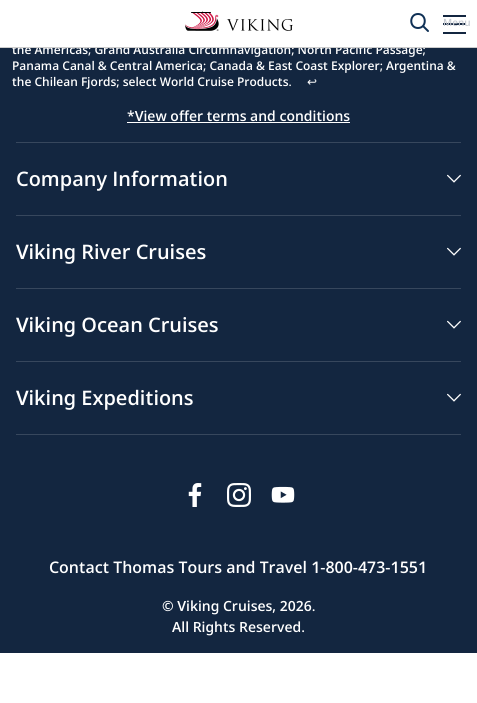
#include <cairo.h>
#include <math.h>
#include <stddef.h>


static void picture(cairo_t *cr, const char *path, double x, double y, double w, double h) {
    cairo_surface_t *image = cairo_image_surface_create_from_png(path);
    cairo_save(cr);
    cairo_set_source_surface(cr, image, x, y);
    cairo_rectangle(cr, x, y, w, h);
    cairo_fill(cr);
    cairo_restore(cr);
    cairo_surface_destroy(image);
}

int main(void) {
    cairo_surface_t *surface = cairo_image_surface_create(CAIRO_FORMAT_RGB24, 477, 703);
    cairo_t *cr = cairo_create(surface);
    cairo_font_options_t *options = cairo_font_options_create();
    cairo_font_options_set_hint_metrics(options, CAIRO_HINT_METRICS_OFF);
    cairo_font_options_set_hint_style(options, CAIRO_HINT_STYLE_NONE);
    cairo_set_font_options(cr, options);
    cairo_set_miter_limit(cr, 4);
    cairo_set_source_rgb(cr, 1, 1, 1);
    cairo_paint(cr);
    cairo_set_source_rgb(cr, 0.078, 0.149, 0.251);
    cairo_rectangle(cr, 0, 48, 477, 605);
    cairo_fill(cr);
    cairo_select_font_face(cr, "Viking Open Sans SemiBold", CAIRO_FONT_SLANT_NORMAL, CAIRO_FONT_WEIGHT_NORMAL);
    cairo_set_font_size(cr, 12);
    cairo_set_source_rgb(cr, 1, 1, 1);
    cairo_move_to(cr, 12, 54);
    cairo_show_text(cr, "the Americas; Grand Australia Circumnavigation; North Pacific Passage;");
    cairo_set_source_rgb(cr, 0.8, 0.8, 0.8);
    cairo_rectangle(cr, 0, 47, 477, 1);
    cairo_fill(cr);
    picture(cr, "img1.png", 185, 11, 108, 20);
    cairo_new_path(cr);
    cairo_move_to(cr, 418, 14);
    cairo_curve_to(cr, 409, 14, 409, 28, 418, 28);
    cairo_curve_to(cr, 427, 28, 427, 14, 418, 14);
    cairo_close_path(cr);
    cairo_move_to(cr, 428, 31);
    cairo_line_to(cr, 423.5, 26.5);
    cairo_set_source_rgb(cr, 0.059, 0.188, 0.333);
    cairo_set_line_cap(cr, CAIRO_LINE_CAP_ROUND);
    cairo_set_line_join(cr, CAIRO_LINE_JOIN_ROUND);
    cairo_stroke(cr);
    cairo_set_source_rgb(cr, 0.078, 0.149, 0.251);
    cairo_rectangle(cr, 443, 15, 23, 2);
    cairo_fill(cr);
    cairo_rectangle(cr, 443, 23, 23, 2);
    cairo_fill(cr);
    cairo_set_font_size(cr, 10);
    cairo_set_source_rgb(cr, 0.776, 0.792, 0.82);
    cairo_move_to(cr, 443, 26);
    cairo_show_text(cr, "Menu");
    cairo_set_source_rgb(cr, 0.078, 0.149, 0.251);
    cairo_rectangle(cr, 443, 32, 23, 2);
    cairo_fill(cr);
    cairo_set_font_size(cr, 12);
    cairo_set_source_rgb(cr, 1, 1, 1);
    cairo_move_to(cr, 12, 70);
    cairo_show_text(cr, "Panama Canal & Central America; Canada & East Coast Explorer; Argentina &");
    cairo_move_to(cr, 12, 86);
    cairo_show_text(cr, "the Chilean Fjords; select World Cruise Products.");
    cairo_select_font_face(cr, "DejaVu Sans", CAIRO_FONT_SLANT_NORMAL, CAIRO_FONT_WEIGHT_NORMAL);
    cairo_move_to(cr, 307, 86);
    cairo_show_text(cr, "↩");
    cairo_select_font_face(cr, "Viking Open Sans SemiBold", CAIRO_FONT_SLANT_NORMAL, CAIRO_FONT_WEIGHT_NORMAL);
    cairo_set_font_size(cr, 14);
    cairo_move_to(cr, 127, 121);
    cairo_show_text(cr, "*View offer terms and conditions");
    cairo_rectangle(cr, 127, 122, 223, 1);
    cairo_fill(cr);
    cairo_set_source_rgb(cr, 0.216, 0.278, 0.365);
    cairo_rectangle(cr, 16, 142, 445, 1);
    cairo_fill(cr);
    cairo_set_font_size(cr, 20);
    cairo_set_source_rgb(cr, 1, 1, 1);
    cairo_move_to(cr, 16, 186);
    cairo_show_text(cr, "Company Information");
    picture(cr, "img2.png", 447, 174, 14, 9);
    cairo_set_source_rgb(cr, 0.216, 0.278, 0.365);
    cairo_rectangle(cr, 16, 215, 445, 1);
    cairo_fill(cr);
    cairo_set_source_rgb(cr, 1, 1, 1);
    cairo_move_to(cr, 16, 259);
    cairo_show_text(cr, "Viking River Cruises");
    picture(cr, "img2.png", 447, 247, 14, 9);
    cairo_set_source_rgb(cr, 0.216, 0.278, 0.365);
    cairo_rectangle(cr, 16, 288, 445, 1);
    cairo_fill(cr);
    cairo_set_source_rgb(cr, 1, 1, 1);
    cairo_move_to(cr, 16, 332);
    cairo_show_text(cr, "Viking Ocean Cruises");
    picture(cr, "img2.png", 447, 320, 14, 9);
    cairo_set_source_rgb(cr, 0.216, 0.278, 0.365);
    cairo_rectangle(cr, 16, 361, 445, 1);
    cairo_fill(cr);
    cairo_set_source_rgb(cr, 1, 1, 1);
    cairo_move_to(cr, 16, 405);
    cairo_show_text(cr, "Viking Expeditions");
    picture(cr, "img2.png", 447, 393, 14, 9);
    cairo_set_source_rgb(cr, 0.216, 0.278, 0.365);
    cairo_rectangle(cr, 16, 434, 445, 1);
    cairo_fill(cr);
    picture(cr, "img3.png", 188, 483, 14, 24);
    picture(cr, "img4.png", 227, 483, 24, 24);
    picture(cr, "img5.png", 271, 486, 24, 17);
    cairo_set_font_size(cr, 16);
    cairo_set_source_rgb(cr, 1, 1, 1);
    cairo_move_to(cr, 49, 573);
    cairo_show_text(cr, "Contact Thomas Tours and Travel 1-800-473-1551");
    cairo_set_font_size(cr, 14);
    cairo_move_to(cr, 162, 611);
    cairo_show_text(cr, "© Viking Cruises, 2026.");
    cairo_move_to(cr, 172, 632);
    cairo_show_text(cr, "All Rights Reserved.");
    cairo_surface_write_to_png(surface, "page.png");
    cairo_font_options_destroy(options);
    cairo_destroy(cr);
    cairo_surface_destroy(surface);
    return 0;
}
